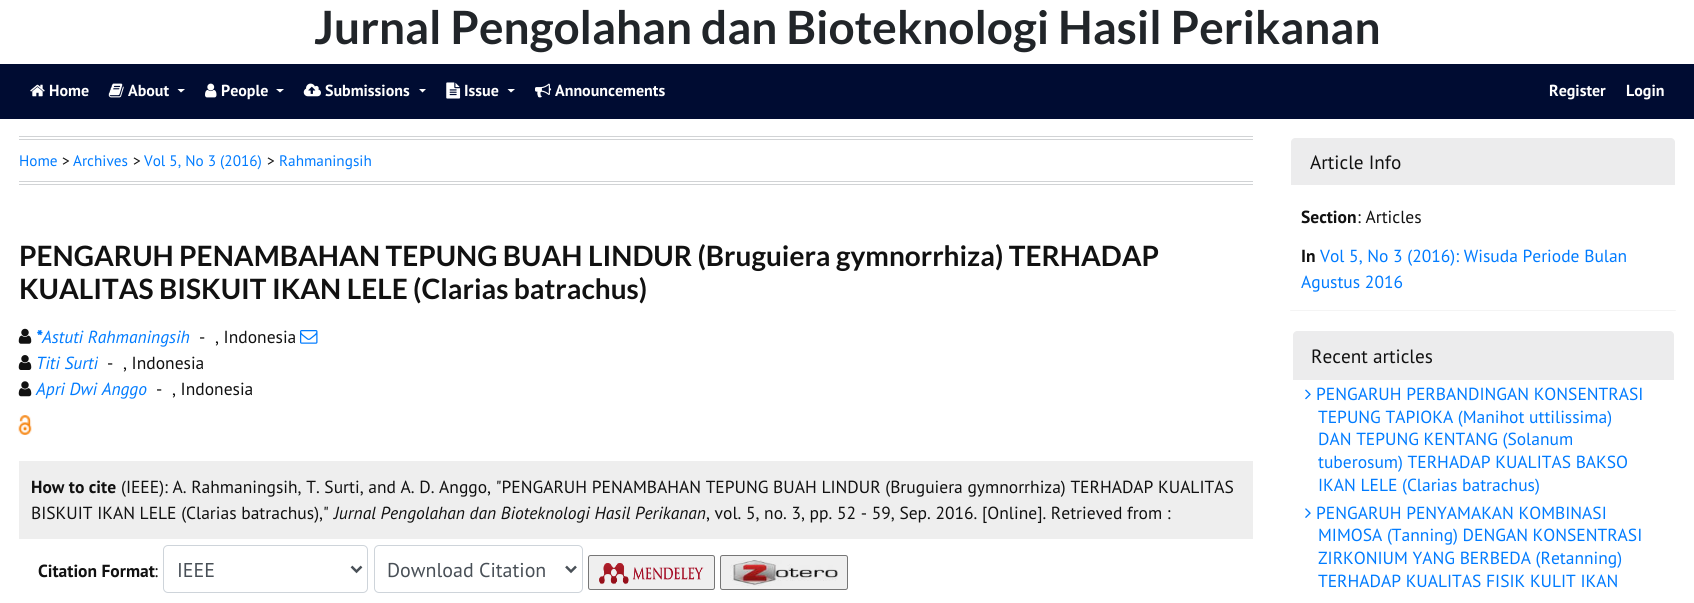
#include <cairo.h>
#include <math.h>
#include <stddef.h>


static void round_rect(cairo_t *cr, double x, double y, double w, double h, double r) {
    cairo_new_sub_path(cr);
    cairo_arc(cr, x + w - r, y + h - r, r, 0, M_PI / 2);
    cairo_arc(cr, x + r, y + h - r, r, M_PI / 2, M_PI);
    cairo_arc(cr, x + r, y + r, r, M_PI, 1.5 * M_PI);
    cairo_arc(cr, x + w - r, y + r, r, 1.5 * M_PI, 2 * M_PI);
    cairo_close_path(cr);
}

static void shadow(cairo_t *cr, double x, double y, double w, double h, double r, double blur, double alpha) {
    cairo_push_group_with_content(cr, CAIRO_CONTENT_ALPHA);
    cairo_set_operator(cr, CAIRO_OPERATOR_SOURCE);
    for (int i = 15; i >= -15 && fmin(w, h) + blur * i / 3 > 0; i -= 2) {
        double e = blur * i / 6;
        cairo_set_source_rgba(cr, 0, 0, 0, alpha * erfc((i - 1) / 8.5) / 2);
        round_rect(cr, x - e, y - e, w + 2 * e, h + 2 * e, fmax(0, fmin(r + e + blur * .6, fmin(w, h) / 2 + e)));
        cairo_fill(cr);
    }
    cairo_pattern_t *soft = cairo_pop_group(cr);
    cairo_mask(cr, soft);
    cairo_pattern_destroy(soft);
}

static void picture(cairo_t *cr, const char *path, double x, double y, double w, double h) {
    cairo_surface_t *image = cairo_image_surface_create_from_png(path);
    cairo_save(cr);
    cairo_set_source_surface(cr, image, x, y);
    cairo_rectangle(cr, x, y, w, h);
    cairo_fill(cr);
    cairo_restore(cr);
    cairo_surface_destroy(image);
}

int main(void) {
    cairo_surface_t *surface = cairo_image_surface_create(CAIRO_FORMAT_RGB24, 1694, 603);
    cairo_t *cr = cairo_create(surface);
    cairo_font_options_t *options = cairo_font_options_create();
    cairo_font_options_set_hint_metrics(options, CAIRO_HINT_METRICS_OFF);
    cairo_font_options_set_hint_style(options, CAIRO_HINT_STYLE_NONE);
    cairo_set_font_options(cr, options);
    cairo_set_miter_limit(cr, 4);
    cairo_set_source_rgb(cr, 1, 1, 1);
    cairo_paint(cr);
    cairo_select_font_face(cr, "Lato", CAIRO_FONT_SLANT_NORMAL, CAIRO_FONT_WEIGHT_BOLD);
    cairo_set_font_size(cr, 45.9);
    cairo_set_source_rgb(cr, 0.129, 0.145, 0.161);
    cairo_move_to(cr, 314, 44);
    cairo_show_text(cr, "Jurnal Pengolahan dan Bioteknologi Hasil Perikanan");
    cairo_set_source_rgb(cr, 0, 0.047, 0.196);
    cairo_rectangle(cr, 0, 64, 1694, 55);
    cairo_fill(cr);
    picture(cr, "img1.png", 30, 84, 15, 13);
    cairo_select_font_face(cr, "PT Sans", CAIRO_FONT_SLANT_NORMAL, CAIRO_FONT_WEIGHT_BOLD);
    cairo_set_font_size(cr, 16);
    cairo_set_source_rgb(cr, 1, 1, 1);
    cairo_move_to(cr, 49, 96);
    cairo_show_text(cr, "Home");
    picture(cr, "img2.png", 108, 83, 16, 15);
    cairo_move_to(cr, 128, 96);
    cairo_show_text(cr, "About");
    cairo_new_path(cr);
    cairo_move_to(cr, 177.5, 89);
    cairo_line_to(cr, 185, 89);
    cairo_line_to(cr, 181, 92.5);
    cairo_close_path(cr);
    cairo_fill(cr);
    picture(cr, "img3.png", 205, 83, 12, 15);
    cairo_move_to(cr, 221, 96);
    cairo_show_text(cr, "People");
    cairo_new_path(cr);
    cairo_move_to(cr, 276, 89);
    cairo_line_to(cr, 284, 89);
    cairo_line_to(cr, 280, 92.5);
    cairo_close_path(cr);
    cairo_fill(cr);
    picture(cr, "img4.png", 303, 83, 18, 14);
    cairo_move_to(cr, 325, 96);
    cairo_show_text(cr, "Submissions");
    cairo_new_path(cr);
    cairo_move_to(cr, 419, 89);
    cairo_line_to(cr, 426, 89);
    cairo_line_to(cr, 422.5, 92.5);
    cairo_close_path(cr);
    cairo_fill(cr);
    picture(cr, "img5.png", 446, 82, 15, 17);
    cairo_move_to(cr, 464, 96);
    cairo_show_text(cr, "Issue");
    cairo_new_path(cr);
    cairo_move_to(cr, 507.5, 89);
    cairo_line_to(cr, 515, 89);
    cairo_line_to(cr, 511, 92.5);
    cairo_close_path(cr);
    cairo_fill(cr);
    picture(cr, "img6.png", 535, 83, 17, 15);
    cairo_move_to(cr, 555, 96);
    cairo_show_text(cr, "Announcements");
    cairo_move_to(cr, 1549, 96);
    cairo_show_text(cr, "Register");
    cairo_move_to(cr, 1626, 96);
    cairo_show_text(cr, "Login");
    cairo_set_source_rgb(cr, 0.82, 0.827, 0.835);
    cairo_rectangle(cr, 19, 136, 1234, 1);
    cairo_fill(cr);
    cairo_rectangle(cr, 19, 139, 1234, 1);
    cairo_fill(cr);
    cairo_rectangle(cr, 19, 181, 1234, 1);
    cairo_fill(cr);
    cairo_rectangle(cr, 19, 184, 1234, 1);
    cairo_fill(cr);
    cairo_select_font_face(cr, "PT Sans", CAIRO_FONT_SLANT_NORMAL, CAIRO_FONT_WEIGHT_NORMAL);
    cairo_set_font_size(cr, 15.25);
    cairo_set_source_rgb(cr, 0, 0.482, 1);
    cairo_move_to(cr, 19, 166);
    cairo_show_text(cr, "Home");
    cairo_set_source_rgb(cr, 0.067, 0.067, 0.067);
    cairo_move_to(cr, 62, 166);
    cairo_show_text(cr, ">");
    cairo_set_source_rgb(cr, 0, 0.482, 1);
    cairo_move_to(cr, 73, 166);
    cairo_show_text(cr, "Archives");
    cairo_set_source_rgb(cr, 0.067, 0.067, 0.067);
    cairo_move_to(cr, 133, 166);
    cairo_show_text(cr, ">");
    cairo_set_source_rgb(cr, 0, 0.482, 1);
    cairo_move_to(cr, 144, 166);
    cairo_show_text(cr, "Vol 5, No 3 (2016)");
    cairo_set_source_rgb(cr, 0.067, 0.067, 0.067);
    cairo_move_to(cr, 267, 166);
    cairo_show_text(cr, ">");
    cairo_set_source_rgb(cr, 0, 0.482, 1);
    cairo_move_to(cr, 279, 166);
    cairo_show_text(cr, "Rahmaningsih");
    cairo_select_font_face(cr, "Lato", CAIRO_FONT_SLANT_NORMAL, CAIRO_FONT_WEIGHT_BOLD);
    cairo_set_font_size(cr, 28);
    cairo_set_source_rgb(cr, 0.067, 0.067, 0.067);
    cairo_move_to(cr, 19, 266);
    cairo_show_text(cr, "PENGARUH PENAMBAHAN TEPUNG BUAH LINDUR (Bruguiera gymnorrhiza) TERHADAP");
    cairo_move_to(cr, 19, 299);
    cairo_show_text(cr, "KUALITAS BISKUIT IKAN LELE (Clarias batrachus)");
    picture(cr, "img7.png", 18, 328, 14, 16);
    cairo_select_font_face(cr, "PT Sans", CAIRO_FONT_SLANT_ITALIC, CAIRO_FONT_WEIGHT_BOLD);
    cairo_set_font_size(cr, 17.5);
    cairo_set_source_rgb(cr, 0, 0.482, 1);
    cairo_move_to(cr, 36, 343);
    cairo_show_text(cr, "*");
    cairo_select_font_face(cr, "PT Sans", CAIRO_FONT_SLANT_ITALIC, CAIRO_FONT_WEIGHT_NORMAL);
    cairo_move_to(cr, 42, 343);
    cairo_show_text(cr, "Astuti Rahmaningsih");
    cairo_select_font_face(cr, "PT Sans", CAIRO_FONT_SLANT_NORMAL, CAIRO_FONT_WEIGHT_NORMAL);
    cairo_set_source_rgb(cr, 0.067, 0.067, 0.067);
    cairo_move_to(cr, 199, 343);
    cairo_show_text(cr, "-");
    cairo_move_to(cr, 215, 343);
    cairo_show_text(cr, ", Indonesia");
    picture(cr, "img8.png", 300, 330, 18, 14);
    picture(cr, "img9.png", 18, 355, 14, 15);
    cairo_select_font_face(cr, "PT Sans", CAIRO_FONT_SLANT_ITALIC, CAIRO_FONT_WEIGHT_NORMAL);
    cairo_set_source_rgb(cr, 0, 0.482, 1);
    cairo_move_to(cr, 36, 369);
    cairo_show_text(cr, "Titi Surti");
    cairo_select_font_face(cr, "PT Sans", CAIRO_FONT_SLANT_NORMAL, CAIRO_FONT_WEIGHT_NORMAL);
    cairo_set_source_rgb(cr, 0.067, 0.067, 0.067);
    cairo_move_to(cr, 107, 369);
    cairo_show_text(cr, "-");
    cairo_move_to(cr, 123, 369);
    cairo_show_text(cr, ", Indonesia");
    picture(cr, "img10.png", 18, 381, 14, 16);
    cairo_select_font_face(cr, "PT Sans", CAIRO_FONT_SLANT_ITALIC, CAIRO_FONT_WEIGHT_NORMAL);
    cairo_set_source_rgb(cr, 0, 0.482, 1);
    cairo_move_to(cr, 36, 395);
    cairo_show_text(cr, "Apri Dwi Anggo");
    cairo_select_font_face(cr, "PT Sans", CAIRO_FONT_SLANT_NORMAL, CAIRO_FONT_WEIGHT_NORMAL);
    cairo_set_source_rgb(cr, 0.067, 0.067, 0.067);
    cairo_move_to(cr, 156, 395);
    cairo_show_text(cr, "-");
    cairo_move_to(cr, 172, 395);
    cairo_show_text(cr, ", Indonesia");
    picture(cr, "img11.png", 18, 415, 14, 20);
    cairo_set_source_rgb(cr, 0.933, 0.933, 0.933);
    cairo_rectangle(cr, 19, 461, 1234, 78);
    cairo_fill(cr);
    cairo_select_font_face(cr, "PT Sans", CAIRO_FONT_SLANT_NORMAL, CAIRO_FONT_WEIGHT_BOLD);
    cairo_set_source_rgb(cr, 0.067, 0.067, 0.067);
    cairo_move_to(cr, 31, 493);
    cairo_show_text(cr, "How to cite");
    cairo_select_font_face(cr, "PT Sans", CAIRO_FONT_SLANT_NORMAL, CAIRO_FONT_WEIGHT_NORMAL);
    cairo_move_to(cr, 121, 493);
    cairo_show_text(cr, "(IEEE): A. Rahmaningsih, T. Surti, and A. D. Anggo, \"PENGARUH PENAMBAHAN TEPUNG BUAH LINDUR (Bruguiera gymnorrhiza) TERHADAP KUALITAS");
    cairo_move_to(cr, 31, 519);
    cairo_show_text(cr, "BISKUIT IKAN LELE (Clarias batrachus),\"");
    cairo_select_font_face(cr, "PT Sans", CAIRO_FONT_SLANT_ITALIC, CAIRO_FONT_WEIGHT_NORMAL);
    cairo_move_to(cr, 334, 519);
    cairo_show_text(cr, "Jurnal Pengolahan dan Bioteknologi Hasil Perikanan");
    cairo_select_font_face(cr, "PT Sans", CAIRO_FONT_SLANT_NORMAL, CAIRO_FONT_WEIGHT_NORMAL);
    cairo_move_to(cr, 706, 519);
    cairo_show_text(cr, ", vol. 5, no. 3, pp. 52 - 59, Sep. 2016. [Online]. Retrieved from :");
    cairo_select_font_face(cr, "PT Sans", CAIRO_FONT_SLANT_NORMAL, CAIRO_FONT_WEIGHT_BOLD);
    cairo_move_to(cr, 38, 577);
    cairo_show_text(cr, "Citation Format");
    cairo_select_font_face(cr, "PT Sans", CAIRO_FONT_SLANT_NORMAL, CAIRO_FONT_WEIGHT_NORMAL);
    cairo_move_to(cr, 154, 577);
    cairo_show_text(cr, ":");
    round_rect(cr, 163.5, 545.5, 204, 47, 4.5);
    cairo_set_source_rgb(cr, 0.808, 0.831, 0.855);
    cairo_set_line_width(cr, 1);
    cairo_stroke(cr);
    cairo_new_path(cr);
    cairo_move_to(cr, 351.5, 566.5);
    cairo_line_to(cr, 356.5, 571.5);
    cairo_line_to(cr, 361.5, 566.5);
    cairo_set_source_rgb(cr, 0.286, 0.314, 0.341);
    cairo_set_line_width(cr, 2.5);
    cairo_stroke(cr);
    cairo_set_font_size(cr, 20);
    cairo_move_to(cr, 177, 577);
    cairo_show_text(cr, "IEEE");
    round_rect(cr, 374.5, 545.5, 208, 47, 4.5);
    cairo_set_source_rgb(cr, 0.808, 0.831, 0.855);
    cairo_set_line_width(cr, 1);
    cairo_stroke(cr);
    cairo_new_path(cr);
    cairo_move_to(cr, 566, 566.5);
    cairo_line_to(cr, 571, 571.5);
    cairo_line_to(cr, 576, 566.5);
    cairo_set_source_rgb(cr, 0.286, 0.314, 0.341);
    cairo_set_line_width(cr, 2.5);
    cairo_stroke(cr);
    cairo_move_to(cr, 387, 577);
    cairo_show_text(cr, "Download Citation");
    cairo_set_source_rgb(cr, 0.937, 0.937, 0.937);
    round_rect(cr, 588.5, 555.5, 126, 34, 2);
    cairo_fill_preserve(cr);
    cairo_set_source_rgb(cr, 0.463, 0.463, 0.463);
    cairo_set_line_width(cr, 1);
    cairo_stroke(cr);
    picture(cr, "img12.png", 599, 563, 105, 22);
    cairo_set_source_rgb(cr, 0.937, 0.937, 0.937);
    round_rect(cr, 720.5, 555.5, 127, 34, 2);
    cairo_fill_preserve(cr);
    cairo_set_source_rgb(cr, 0.463, 0.463, 0.463);
    cairo_stroke(cr);
    picture(cr, "img13.png", 730, 560, 108, 26);
    cairo_save(cr);
    cairo_rectangle(cr, 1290, 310, 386, 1);
    cairo_clip(cr);
    cairo_set_source_rgb(cr, 0, 0, 0);
    shadow(cr, 1290, 138, 386, 173, 0, 0.5, 0.05);
    cairo_restore(cr);
    cairo_set_source_rgb(cr, 0.925, 0.925, 0.929);
    cairo_new_path(cr);
    cairo_move_to(cr, 1295, 138);
    cairo_line_to(cr, 1671, 138);
    cairo_curve_to(cr, 1673, 138, 1675, 140, 1675, 142);
    cairo_line_to(cr, 1675, 185);
    cairo_line_to(cr, 1291, 185);
    cairo_line_to(cr, 1291, 142);
    cairo_curve_to(cr, 1291, 140, 1293, 138, 1295, 138);
    cairo_close_path(cr);
    cairo_fill(cr);
    cairo_set_font_size(cr, 19.25);
    cairo_set_source_rgb(cr, 0.067, 0.067, 0.067);
    cairo_move_to(cr, 1310, 169);
    cairo_show_text(cr, "Article Info");
    cairo_select_font_face(cr, "PT Sans", CAIRO_FONT_SLANT_NORMAL, CAIRO_FONT_WEIGHT_BOLD);
    cairo_set_font_size(cr, 17.5);
    cairo_move_to(cr, 1301, 223);
    cairo_show_text(cr, "Section");
    cairo_select_font_face(cr, "PT Sans", CAIRO_FONT_SLANT_NORMAL, CAIRO_FONT_WEIGHT_NORMAL);
    cairo_move_to(cr, 1357, 223);
    cairo_show_text(cr, ": Articles");
    cairo_select_font_face(cr, "PT Sans", CAIRO_FONT_SLANT_NORMAL, CAIRO_FONT_WEIGHT_BOLD);
    cairo_move_to(cr, 1301, 262);
    cairo_show_text(cr, "In");
    cairo_select_font_face(cr, "PT Sans", CAIRO_FONT_SLANT_NORMAL, CAIRO_FONT_WEIGHT_NORMAL);
    cairo_set_source_rgb(cr, 0, 0.482, 1);
    cairo_move_to(cr, 1320, 262);
    cairo_show_text(cr, "Vol 5, No 3 (2016): Wisuda Periode Bulan");
    cairo_move_to(cr, 1301, 288);
    cairo_show_text(cr, "Agustus 2016");
    cairo_set_source_rgb(cr, 0.925, 0.925, 0.929);
    cairo_new_path(cr);
    cairo_move_to(cr, 1297, 331);
    cairo_line_to(cr, 1670, 331);
    cairo_curve_to(cr, 1672, 331, 1674, 333, 1674, 335);
    cairo_line_to(cr, 1674, 380);
    cairo_line_to(cr, 1293, 380);
    cairo_line_to(cr, 1293, 335);
    cairo_curve_to(cr, 1293, 333, 1295, 331, 1297, 331);
    cairo_close_path(cr);
    cairo_fill(cr);
    cairo_set_font_size(cr, 19.25);
    cairo_set_source_rgb(cr, 0.067, 0.067, 0.067);
    cairo_move_to(cr, 1311, 363);
    cairo_show_text(cr, "Recent articles");
    picture(cr, "img14.png", 1305, 389, 6, 11);
    cairo_set_font_size(cr, 17.5);
    cairo_set_source_rgb(cr, 0, 0.482, 1);
    cairo_move_to(cr, 1316, 400);
    cairo_show_text(cr, "PENGARUH PERBANDINGAN KONSENTRASI");
    cairo_move_to(cr, 1318, 423);
    cairo_show_text(cr, "TEPUNG TAPIOKA (Manihot uttilissima)");
    cairo_move_to(cr, 1318, 445);
    cairo_show_text(cr, "DAN TEPUNG KENTANG (Solanum");
    cairo_move_to(cr, 1318, 468);
    cairo_show_text(cr, "tuberosum) TERHADAP KUALITAS BAKSO");
    cairo_move_to(cr, 1318, 491);
    cairo_show_text(cr, "IKAN LELE (Clarias batrachus)");
    picture(cr, "img15.png", 1305, 508, 6, 10);
    cairo_move_to(cr, 1316, 519);
    cairo_show_text(cr, "PENGARUH PENYAMAKAN KOMBINASI");
    cairo_move_to(cr, 1318, 541);
    cairo_show_text(cr, "MIMOSA (Tanning) DENGAN KONSENTRASI");
    cairo_move_to(cr, 1318, 564);
    cairo_show_text(cr, "ZIRKONIUM YANG BERBEDA (Retanning)");
    cairo_move_to(cr, 1318, 587);
    cairo_show_text(cr, "TERHADAP KUALITAS FISIK KULIT IKAN");
    cairo_surface_write_to_png(surface, "page.png");
    cairo_font_options_destroy(options);
    cairo_destroy(cr);
    cairo_surface_destroy(surface);
    return 0;
}
